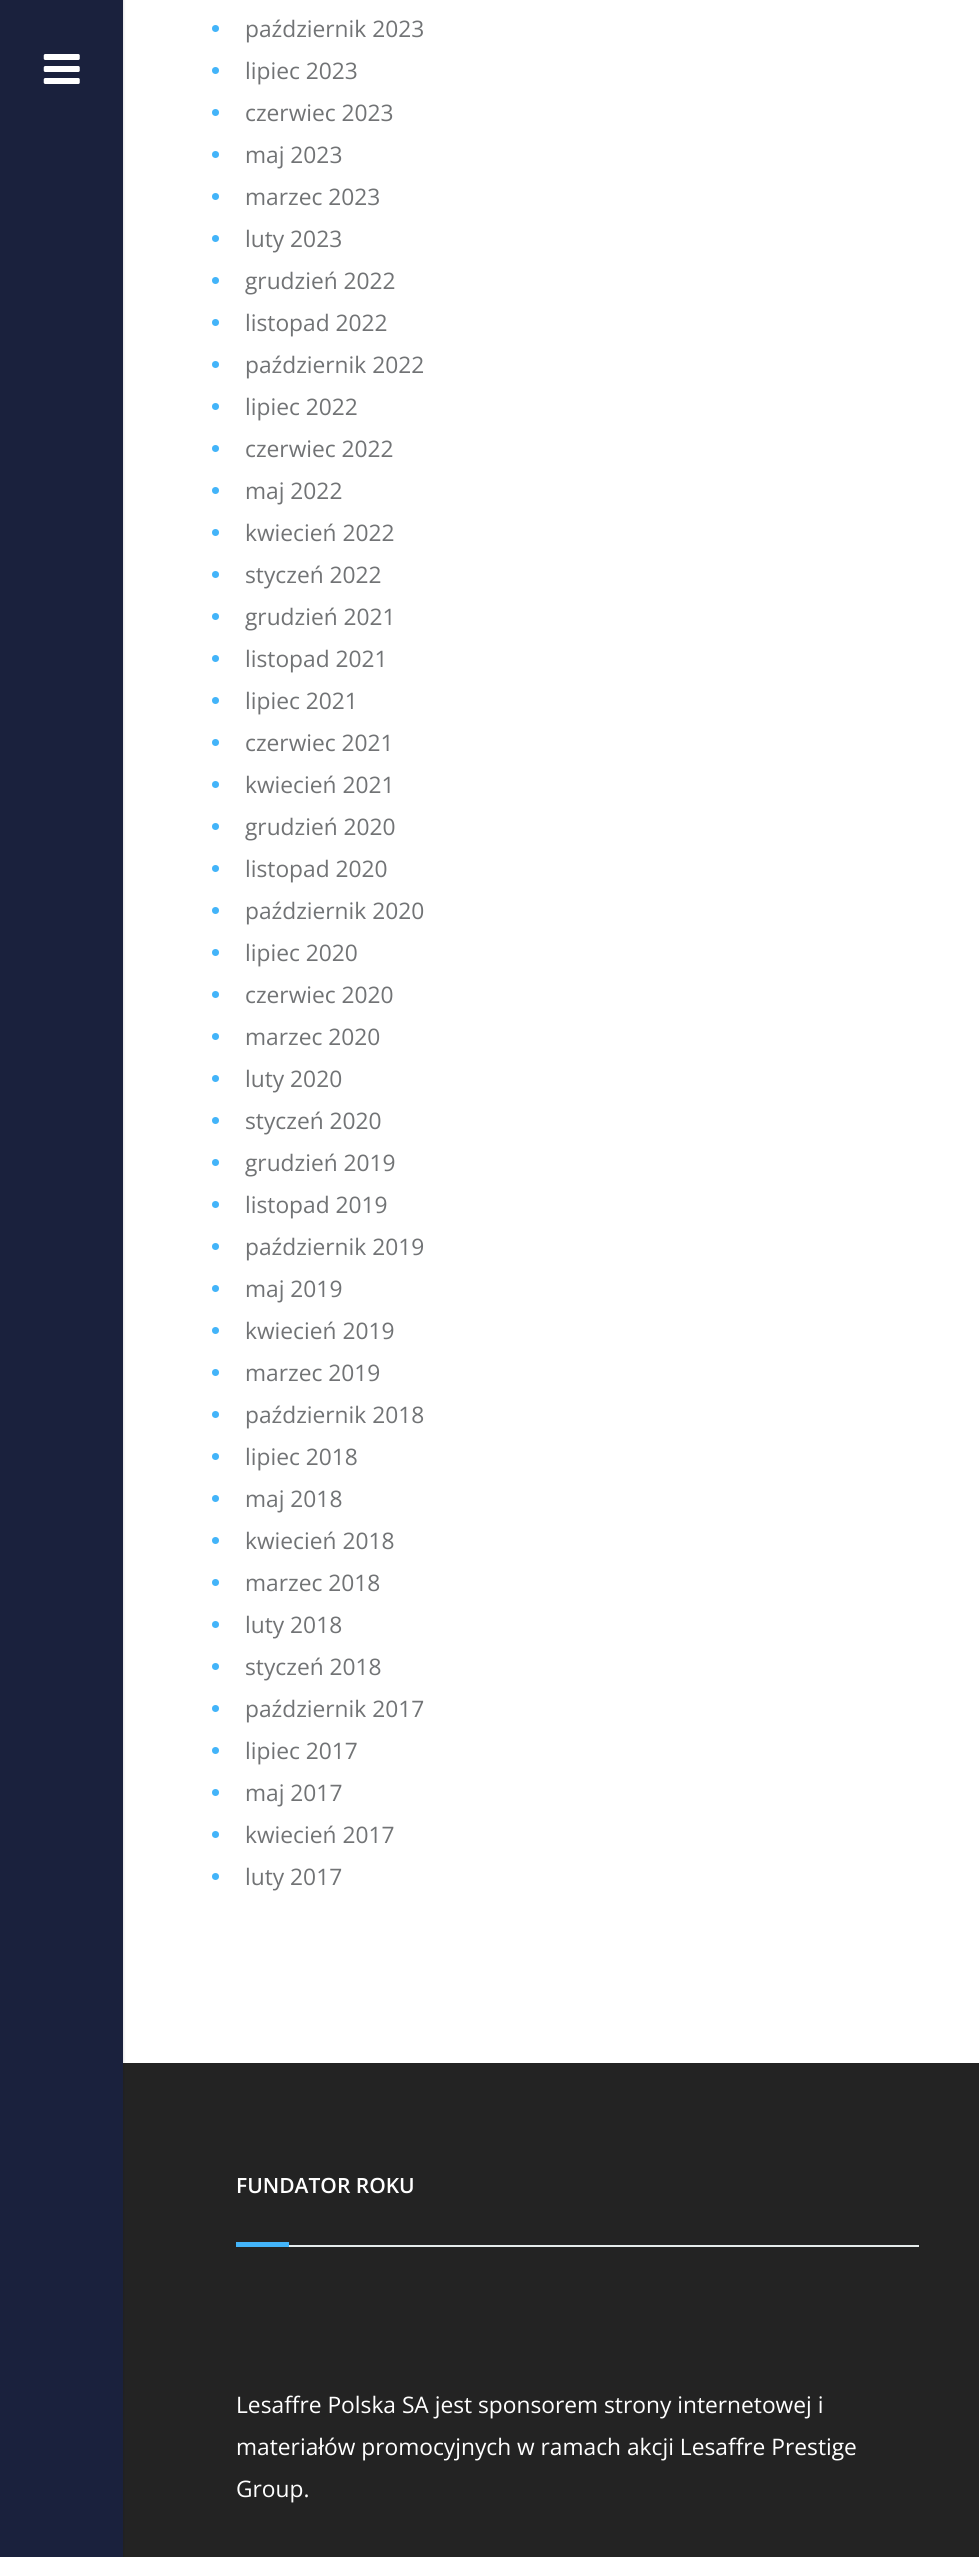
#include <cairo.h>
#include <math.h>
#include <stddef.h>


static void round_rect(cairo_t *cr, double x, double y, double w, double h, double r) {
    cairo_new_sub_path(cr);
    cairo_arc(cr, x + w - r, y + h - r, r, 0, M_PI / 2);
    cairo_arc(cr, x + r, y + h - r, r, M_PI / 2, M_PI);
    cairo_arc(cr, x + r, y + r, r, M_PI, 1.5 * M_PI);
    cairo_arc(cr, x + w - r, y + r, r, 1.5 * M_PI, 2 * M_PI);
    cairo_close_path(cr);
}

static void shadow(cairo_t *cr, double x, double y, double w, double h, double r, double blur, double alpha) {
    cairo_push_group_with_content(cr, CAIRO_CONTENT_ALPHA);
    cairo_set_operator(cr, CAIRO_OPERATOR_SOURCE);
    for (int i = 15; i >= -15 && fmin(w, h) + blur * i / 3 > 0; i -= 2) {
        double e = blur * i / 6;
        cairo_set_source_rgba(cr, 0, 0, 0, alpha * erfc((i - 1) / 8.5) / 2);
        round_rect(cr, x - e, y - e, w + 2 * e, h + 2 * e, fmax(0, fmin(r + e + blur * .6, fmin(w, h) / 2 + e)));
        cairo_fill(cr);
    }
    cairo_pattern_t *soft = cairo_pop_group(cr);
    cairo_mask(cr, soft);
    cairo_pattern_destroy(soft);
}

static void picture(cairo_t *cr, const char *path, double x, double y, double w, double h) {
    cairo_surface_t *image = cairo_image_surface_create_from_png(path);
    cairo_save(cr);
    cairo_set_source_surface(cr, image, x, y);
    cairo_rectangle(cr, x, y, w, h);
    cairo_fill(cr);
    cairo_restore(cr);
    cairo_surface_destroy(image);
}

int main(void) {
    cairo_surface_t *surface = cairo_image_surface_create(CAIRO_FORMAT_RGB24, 979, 2557);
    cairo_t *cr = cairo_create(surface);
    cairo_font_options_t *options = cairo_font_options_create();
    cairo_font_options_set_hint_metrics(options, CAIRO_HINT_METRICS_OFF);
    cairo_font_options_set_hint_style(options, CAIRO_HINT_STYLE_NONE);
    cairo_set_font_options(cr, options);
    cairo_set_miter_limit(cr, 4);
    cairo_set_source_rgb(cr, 1, 1, 1);
    cairo_paint(cr);
    cairo_set_source_rgb(cr, 0.137, 0.137, 0.137);
    cairo_rectangle(cr, 123, 2063, 856, 494);
    cairo_fill(cr);
    cairo_set_source_rgb(cr, 0, 0, 0);
    shadow(cr, -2, -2, 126, 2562, 0, 1, 0.1);
    cairo_set_source_rgb(cr, 0.102, 0.129, 0.239);
    cairo_rectangle(cr, 0, 0, 123, 2557);
    cairo_fill(cr);
    picture(cr, "img1.png", 43, 54, 37, 30);
    cairo_set_source_rgb(cr, 0.263, 0.706, 0.976);
    cairo_arc(cr, 215.5, 28.5, 3.5, 0, 2 * M_PI);
    cairo_fill(cr);
    cairo_select_font_face(cr, "Open Sans", CAIRO_FONT_SLANT_NORMAL, CAIRO_FONT_WEIGHT_NORMAL);
    cairo_set_font_size(cr, 22.75);
    cairo_set_source_rgb(cr, 0.443, 0.451, 0.459);
    cairo_move_to(cr, 245, 37);
    cairo_show_text(cr, "październik 2023");
    cairo_set_source_rgb(cr, 0.263, 0.706, 0.976);
    cairo_new_path(cr);
    cairo_arc(cr, 215.5, 70.5, 3.5, 0, 2 * M_PI);
    cairo_fill(cr);
    cairo_set_source_rgb(cr, 0.443, 0.451, 0.459);
    cairo_move_to(cr, 245, 79);
    cairo_show_text(cr, "lipiec 2023");
    cairo_set_source_rgb(cr, 0.263, 0.706, 0.976);
    cairo_new_path(cr);
    cairo_arc(cr, 215.5, 112.5, 3.5, 0, 2 * M_PI);
    cairo_fill(cr);
    cairo_set_source_rgb(cr, 0.443, 0.451, 0.459);
    cairo_move_to(cr, 245, 121);
    cairo_show_text(cr, "czerwiec 2023");
    cairo_set_source_rgb(cr, 0.263, 0.706, 0.976);
    cairo_new_path(cr);
    cairo_arc(cr, 215.5, 154.5, 3.5, 0, 2 * M_PI);
    cairo_fill(cr);
    cairo_set_source_rgb(cr, 0.443, 0.451, 0.459);
    cairo_move_to(cr, 245, 163);
    cairo_show_text(cr, "maj 2023");
    cairo_set_source_rgb(cr, 0.263, 0.706, 0.976);
    cairo_new_path(cr);
    cairo_arc(cr, 215.5, 196.5, 3.5, 0, 2 * M_PI);
    cairo_fill(cr);
    cairo_set_source_rgb(cr, 0.443, 0.451, 0.459);
    cairo_move_to(cr, 245, 205);
    cairo_show_text(cr, "marzec 2023");
    cairo_set_source_rgb(cr, 0.263, 0.706, 0.976);
    cairo_new_path(cr);
    cairo_arc(cr, 215.5, 238.5, 3.5, 0, 2 * M_PI);
    cairo_fill(cr);
    cairo_set_source_rgb(cr, 0.443, 0.451, 0.459);
    cairo_move_to(cr, 245, 247);
    cairo_show_text(cr, "luty 2023");
    cairo_set_source_rgb(cr, 0.263, 0.706, 0.976);
    cairo_new_path(cr);
    cairo_arc(cr, 215.5, 280.5, 3.5, 0, 2 * M_PI);
    cairo_fill(cr);
    cairo_set_source_rgb(cr, 0.443, 0.451, 0.459);
    cairo_move_to(cr, 245, 289);
    cairo_show_text(cr, "grudzień 2022");
    cairo_set_source_rgb(cr, 0.263, 0.706, 0.976);
    cairo_new_path(cr);
    cairo_arc(cr, 215.5, 322.5, 3.5, 0, 2 * M_PI);
    cairo_fill(cr);
    cairo_set_source_rgb(cr, 0.443, 0.451, 0.459);
    cairo_move_to(cr, 245, 331);
    cairo_show_text(cr, "listopad 2022");
    cairo_set_source_rgb(cr, 0.263, 0.706, 0.976);
    cairo_new_path(cr);
    cairo_arc(cr, 215.5, 364.5, 3.5, 0, 2 * M_PI);
    cairo_fill(cr);
    cairo_set_source_rgb(cr, 0.443, 0.451, 0.459);
    cairo_move_to(cr, 245, 373);
    cairo_show_text(cr, "październik 2022");
    cairo_set_source_rgb(cr, 0.263, 0.706, 0.976);
    cairo_new_path(cr);
    cairo_arc(cr, 215.5, 406.5, 3.5, 0, 2 * M_PI);
    cairo_fill(cr);
    cairo_set_source_rgb(cr, 0.443, 0.451, 0.459);
    cairo_move_to(cr, 245, 415);
    cairo_show_text(cr, "lipiec 2022");
    cairo_set_source_rgb(cr, 0.263, 0.706, 0.976);
    cairo_new_path(cr);
    cairo_arc(cr, 215.5, 448.5, 3.5, 0, 2 * M_PI);
    cairo_fill(cr);
    cairo_set_source_rgb(cr, 0.443, 0.451, 0.459);
    cairo_move_to(cr, 245, 457);
    cairo_show_text(cr, "czerwiec 2022");
    cairo_set_source_rgb(cr, 0.263, 0.706, 0.976);
    cairo_new_path(cr);
    cairo_arc(cr, 215.5, 490.5, 3.5, 0, 2 * M_PI);
    cairo_fill(cr);
    cairo_set_source_rgb(cr, 0.443, 0.451, 0.459);
    cairo_move_to(cr, 245, 499);
    cairo_show_text(cr, "maj 2022");
    cairo_set_source_rgb(cr, 0.263, 0.706, 0.976);
    cairo_new_path(cr);
    cairo_arc(cr, 215.5, 532.5, 3.5, 0, 2 * M_PI);
    cairo_fill(cr);
    cairo_set_source_rgb(cr, 0.443, 0.451, 0.459);
    cairo_move_to(cr, 245, 541);
    cairo_show_text(cr, "kwiecień 2022");
    cairo_set_source_rgb(cr, 0.263, 0.706, 0.976);
    cairo_new_path(cr);
    cairo_arc(cr, 215.5, 574.5, 3.5, 0, 2 * M_PI);
    cairo_fill(cr);
    cairo_set_source_rgb(cr, 0.443, 0.451, 0.459);
    cairo_move_to(cr, 245, 583);
    cairo_show_text(cr, "styczeń 2022");
    cairo_set_source_rgb(cr, 0.263, 0.706, 0.976);
    cairo_new_path(cr);
    cairo_arc(cr, 215.5, 616.5, 3.5, 0, 2 * M_PI);
    cairo_fill(cr);
    cairo_set_source_rgb(cr, 0.443, 0.451, 0.459);
    cairo_move_to(cr, 245, 625);
    cairo_show_text(cr, "grudzień 2021");
    cairo_set_source_rgb(cr, 0.263, 0.706, 0.976);
    cairo_new_path(cr);
    cairo_arc(cr, 215.5, 658.5, 3.5, 0, 2 * M_PI);
    cairo_fill(cr);
    cairo_set_source_rgb(cr, 0.443, 0.451, 0.459);
    cairo_move_to(cr, 245, 667);
    cairo_show_text(cr, "listopad 2021");
    cairo_set_source_rgb(cr, 0.263, 0.706, 0.976);
    cairo_new_path(cr);
    cairo_arc(cr, 215.5, 700.5, 3.5, 0, 2 * M_PI);
    cairo_fill(cr);
    cairo_set_source_rgb(cr, 0.443, 0.451, 0.459);
    cairo_move_to(cr, 245, 709);
    cairo_show_text(cr, "lipiec 2021");
    cairo_set_source_rgb(cr, 0.263, 0.706, 0.976);
    cairo_new_path(cr);
    cairo_arc(cr, 215.5, 742.5, 3.5, 0, 2 * M_PI);
    cairo_fill(cr);
    cairo_set_source_rgb(cr, 0.443, 0.451, 0.459);
    cairo_move_to(cr, 245, 751);
    cairo_show_text(cr, "czerwiec 2021");
    cairo_set_source_rgb(cr, 0.263, 0.706, 0.976);
    cairo_new_path(cr);
    cairo_arc(cr, 215.5, 784.5, 3.5, 0, 2 * M_PI);
    cairo_fill(cr);
    cairo_set_source_rgb(cr, 0.443, 0.451, 0.459);
    cairo_move_to(cr, 245, 793);
    cairo_show_text(cr, "kwiecień 2021");
    cairo_set_source_rgb(cr, 0.263, 0.706, 0.976);
    cairo_new_path(cr);
    cairo_arc(cr, 215.5, 826.5, 3.5, 0, 2 * M_PI);
    cairo_fill(cr);
    cairo_set_source_rgb(cr, 0.443, 0.451, 0.459);
    cairo_move_to(cr, 245, 835);
    cairo_show_text(cr, "grudzień 2020");
    cairo_set_source_rgb(cr, 0.263, 0.706, 0.976);
    cairo_new_path(cr);
    cairo_arc(cr, 215.5, 868.5, 3.5, 0, 2 * M_PI);
    cairo_fill(cr);
    cairo_set_source_rgb(cr, 0.443, 0.451, 0.459);
    cairo_move_to(cr, 245, 877);
    cairo_show_text(cr, "listopad 2020");
    cairo_set_source_rgb(cr, 0.263, 0.706, 0.976);
    cairo_new_path(cr);
    cairo_arc(cr, 215.5, 910.5, 3.5, 0, 2 * M_PI);
    cairo_fill(cr);
    cairo_set_source_rgb(cr, 0.443, 0.451, 0.459);
    cairo_move_to(cr, 245, 919);
    cairo_show_text(cr, "październik 2020");
    cairo_set_source_rgb(cr, 0.263, 0.706, 0.976);
    cairo_new_path(cr);
    cairo_arc(cr, 215.5, 952.5, 3.5, 0, 2 * M_PI);
    cairo_fill(cr);
    cairo_set_source_rgb(cr, 0.443, 0.451, 0.459);
    cairo_move_to(cr, 245, 961);
    cairo_show_text(cr, "lipiec 2020");
    cairo_set_source_rgb(cr, 0.263, 0.706, 0.976);
    cairo_new_path(cr);
    cairo_arc(cr, 215.5, 994.5, 3.5, 0, 2 * M_PI);
    cairo_fill(cr);
    cairo_set_source_rgb(cr, 0.443, 0.451, 0.459);
    cairo_move_to(cr, 245, 1003);
    cairo_show_text(cr, "czerwiec 2020");
    cairo_set_source_rgb(cr, 0.263, 0.706, 0.976);
    cairo_new_path(cr);
    cairo_arc(cr, 215.5, 1036.5, 3.5, 0, 2 * M_PI);
    cairo_fill(cr);
    cairo_set_source_rgb(cr, 0.443, 0.451, 0.459);
    cairo_move_to(cr, 245, 1045);
    cairo_show_text(cr, "marzec 2020");
    cairo_set_source_rgb(cr, 0.263, 0.706, 0.976);
    cairo_new_path(cr);
    cairo_arc(cr, 215.5, 1078.5, 3.5, 0, 2 * M_PI);
    cairo_fill(cr);
    cairo_set_source_rgb(cr, 0.443, 0.451, 0.459);
    cairo_move_to(cr, 245, 1087);
    cairo_show_text(cr, "luty 2020");
    cairo_set_source_rgb(cr, 0.263, 0.706, 0.976);
    cairo_new_path(cr);
    cairo_arc(cr, 215.5, 1120.5, 3.5, 0, 2 * M_PI);
    cairo_fill(cr);
    cairo_set_source_rgb(cr, 0.443, 0.451, 0.459);
    cairo_move_to(cr, 245, 1129);
    cairo_show_text(cr, "styczeń 2020");
    cairo_set_source_rgb(cr, 0.263, 0.706, 0.976);
    cairo_new_path(cr);
    cairo_arc(cr, 215.5, 1162.5, 3.5, 0, 2 * M_PI);
    cairo_fill(cr);
    cairo_set_source_rgb(cr, 0.443, 0.451, 0.459);
    cairo_move_to(cr, 245, 1171);
    cairo_show_text(cr, "grudzień 2019");
    cairo_set_source_rgb(cr, 0.263, 0.706, 0.976);
    cairo_new_path(cr);
    cairo_arc(cr, 215.5, 1204.5, 3.5, 0, 2 * M_PI);
    cairo_fill(cr);
    cairo_set_source_rgb(cr, 0.443, 0.451, 0.459);
    cairo_move_to(cr, 245, 1213);
    cairo_show_text(cr, "listopad 2019");
    cairo_set_source_rgb(cr, 0.263, 0.706, 0.976);
    cairo_new_path(cr);
    cairo_arc(cr, 215.5, 1246.5, 3.5, 0, 2 * M_PI);
    cairo_fill(cr);
    cairo_set_source_rgb(cr, 0.443, 0.451, 0.459);
    cairo_move_to(cr, 245, 1255);
    cairo_show_text(cr, "październik 2019");
    cairo_set_source_rgb(cr, 0.263, 0.706, 0.976);
    cairo_new_path(cr);
    cairo_arc(cr, 215.5, 1288.5, 3.5, 0, 2 * M_PI);
    cairo_fill(cr);
    cairo_set_source_rgb(cr, 0.443, 0.451, 0.459);
    cairo_move_to(cr, 245, 1297);
    cairo_show_text(cr, "maj 2019");
    cairo_set_source_rgb(cr, 0.263, 0.706, 0.976);
    cairo_new_path(cr);
    cairo_arc(cr, 215.5, 1330.5, 3.5, 0, 2 * M_PI);
    cairo_fill(cr);
    cairo_set_source_rgb(cr, 0.443, 0.451, 0.459);
    cairo_move_to(cr, 245, 1339);
    cairo_show_text(cr, "kwiecień 2019");
    cairo_set_source_rgb(cr, 0.263, 0.706, 0.976);
    cairo_new_path(cr);
    cairo_arc(cr, 215.5, 1372.5, 3.5, 0, 2 * M_PI);
    cairo_fill(cr);
    cairo_set_source_rgb(cr, 0.443, 0.451, 0.459);
    cairo_move_to(cr, 245, 1381);
    cairo_show_text(cr, "marzec 2019");
    cairo_set_source_rgb(cr, 0.263, 0.706, 0.976);
    cairo_new_path(cr);
    cairo_arc(cr, 215.5, 1414.5, 3.5, 0, 2 * M_PI);
    cairo_fill(cr);
    cairo_set_source_rgb(cr, 0.443, 0.451, 0.459);
    cairo_move_to(cr, 245, 1423);
    cairo_show_text(cr, "październik 2018");
    cairo_set_source_rgb(cr, 0.263, 0.706, 0.976);
    cairo_new_path(cr);
    cairo_arc(cr, 215.5, 1456.5, 3.5, 0, 2 * M_PI);
    cairo_fill(cr);
    cairo_set_source_rgb(cr, 0.443, 0.451, 0.459);
    cairo_move_to(cr, 245, 1465);
    cairo_show_text(cr, "lipiec 2018");
    cairo_set_source_rgb(cr, 0.263, 0.706, 0.976);
    cairo_new_path(cr);
    cairo_arc(cr, 215.5, 1498.5, 3.5, 0, 2 * M_PI);
    cairo_fill(cr);
    cairo_set_source_rgb(cr, 0.443, 0.451, 0.459);
    cairo_move_to(cr, 245, 1507);
    cairo_show_text(cr, "maj 2018");
    cairo_set_source_rgb(cr, 0.263, 0.706, 0.976);
    cairo_new_path(cr);
    cairo_arc(cr, 215.5, 1540.5, 3.5, 0, 2 * M_PI);
    cairo_fill(cr);
    cairo_set_source_rgb(cr, 0.443, 0.451, 0.459);
    cairo_move_to(cr, 245, 1549);
    cairo_show_text(cr, "kwiecień 2018");
    cairo_set_source_rgb(cr, 0.263, 0.706, 0.976);
    cairo_new_path(cr);
    cairo_arc(cr, 215.5, 1582.5, 3.5, 0, 2 * M_PI);
    cairo_fill(cr);
    cairo_set_source_rgb(cr, 0.443, 0.451, 0.459);
    cairo_move_to(cr, 245, 1591);
    cairo_show_text(cr, "marzec 2018");
    cairo_set_source_rgb(cr, 0.263, 0.706, 0.976);
    cairo_new_path(cr);
    cairo_arc(cr, 215.5, 1624.5, 3.5, 0, 2 * M_PI);
    cairo_fill(cr);
    cairo_set_source_rgb(cr, 0.443, 0.451, 0.459);
    cairo_move_to(cr, 245, 1633);
    cairo_show_text(cr, "luty 2018");
    cairo_set_source_rgb(cr, 0.263, 0.706, 0.976);
    cairo_new_path(cr);
    cairo_arc(cr, 215.5, 1666.5, 3.5, 0, 2 * M_PI);
    cairo_fill(cr);
    cairo_set_source_rgb(cr, 0.443, 0.451, 0.459);
    cairo_move_to(cr, 245, 1675);
    cairo_show_text(cr, "styczeń 2018");
    cairo_set_source_rgb(cr, 0.263, 0.706, 0.976);
    cairo_new_path(cr);
    cairo_arc(cr, 215.5, 1708.5, 3.5, 0, 2 * M_PI);
    cairo_fill(cr);
    cairo_set_source_rgb(cr, 0.443, 0.451, 0.459);
    cairo_move_to(cr, 245, 1717);
    cairo_show_text(cr, "październik 2017");
    cairo_set_source_rgb(cr, 0.263, 0.706, 0.976);
    cairo_new_path(cr);
    cairo_arc(cr, 215.5, 1750.5, 3.5, 0, 2 * M_PI);
    cairo_fill(cr);
    cairo_set_source_rgb(cr, 0.443, 0.451, 0.459);
    cairo_move_to(cr, 245, 1759);
    cairo_show_text(cr, "lipiec 2017");
    cairo_set_source_rgb(cr, 0.263, 0.706, 0.976);
    cairo_new_path(cr);
    cairo_arc(cr, 215.5, 1792.5, 3.5, 0, 2 * M_PI);
    cairo_fill(cr);
    cairo_set_source_rgb(cr, 0.443, 0.451, 0.459);
    cairo_move_to(cr, 245, 1801);
    cairo_show_text(cr, "maj 2017");
    cairo_set_source_rgb(cr, 0.263, 0.706, 0.976);
    cairo_new_path(cr);
    cairo_arc(cr, 215.5, 1834.5, 3.5, 0, 2 * M_PI);
    cairo_fill(cr);
    cairo_set_source_rgb(cr, 0.443, 0.451, 0.459);
    cairo_move_to(cr, 245, 1843);
    cairo_show_text(cr, "kwiecień 2017");
    cairo_set_source_rgb(cr, 0.263, 0.706, 0.976);
    cairo_new_path(cr);
    cairo_arc(cr, 215.5, 1876.5, 3.5, 0, 2 * M_PI);
    cairo_fill(cr);
    cairo_set_source_rgb(cr, 0.443, 0.451, 0.459);
    cairo_move_to(cr, 245, 1885);
    cairo_show_text(cr, "luty 2017");
    cairo_select_font_face(cr, "Open Sans SemiBold", CAIRO_FONT_SLANT_NORMAL, CAIRO_FONT_WEIGHT_NORMAL);
    cairo_set_font_size(cr, 21);
    cairo_set_source_rgb(cr, 1, 1, 1);
    cairo_move_to(cr, 236, 2193);
    cairo_show_text(cr, "FUNDATOR ROKU");
    cairo_set_source_rgb(cr, 0.898, 0.918, 0.925);
    cairo_rectangle(cr, 289, 2245, 630, 2);
    cairo_fill(cr);
    cairo_set_source_rgb(cr, 0.263, 0.706, 0.976);
    cairo_rectangle(cr, 236, 2242, 53, 5);
    cairo_fill(cr);
    cairo_select_font_face(cr, "Open Sans", CAIRO_FONT_SLANT_NORMAL, CAIRO_FONT_WEIGHT_NORMAL);
    cairo_set_font_size(cr, 22.75);
    cairo_set_source_rgb(cr, 1, 1, 1);
    cairo_move_to(cr, 236, 2413);
    cairo_show_text(cr, "Lesaffre Polska SA jest sponsorem strony internetowej i");
    cairo_move_to(cr, 236, 2455);
    cairo_show_text(cr, "materiałów promocyjnych w ramach akcji Lesaffre Prestige");
    cairo_move_to(cr, 236, 2497);
    cairo_show_text(cr, "Group.");
    cairo_surface_write_to_png(surface, "page.png");
    cairo_font_options_destroy(options);
    cairo_destroy(cr);
    cairo_surface_destroy(surface);
    return 0;
}
